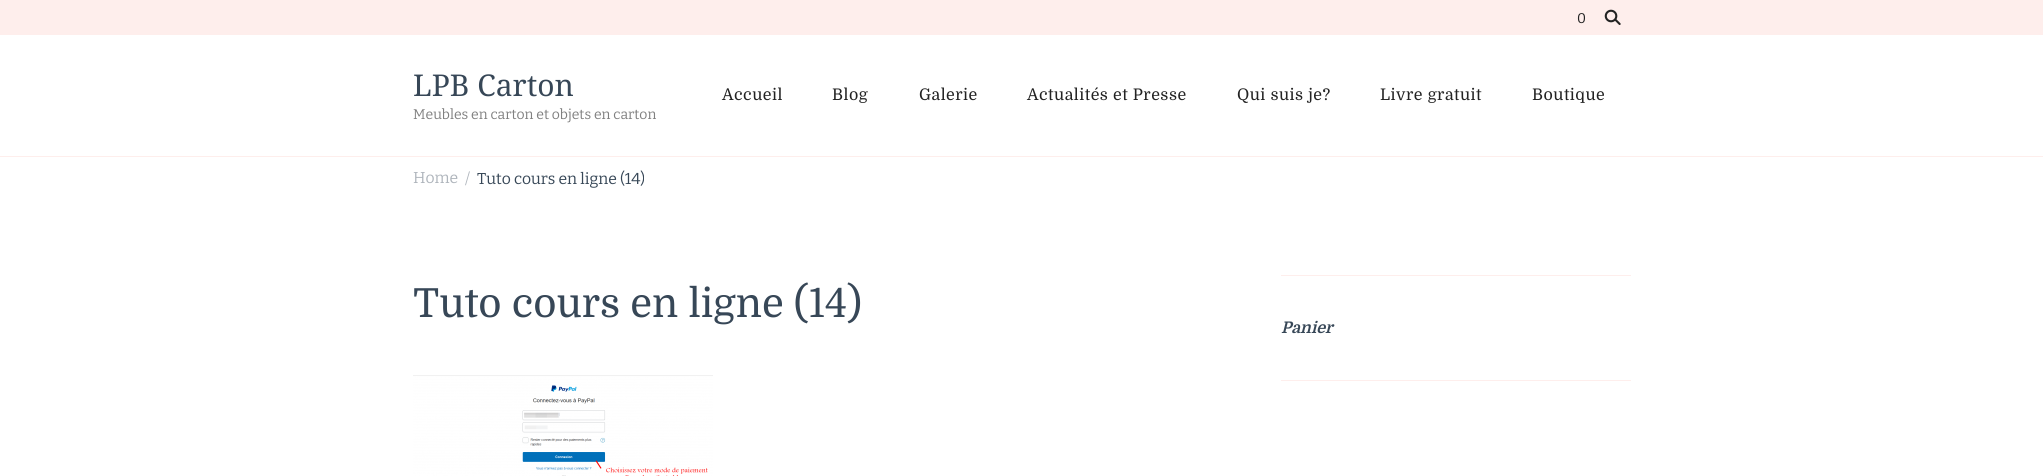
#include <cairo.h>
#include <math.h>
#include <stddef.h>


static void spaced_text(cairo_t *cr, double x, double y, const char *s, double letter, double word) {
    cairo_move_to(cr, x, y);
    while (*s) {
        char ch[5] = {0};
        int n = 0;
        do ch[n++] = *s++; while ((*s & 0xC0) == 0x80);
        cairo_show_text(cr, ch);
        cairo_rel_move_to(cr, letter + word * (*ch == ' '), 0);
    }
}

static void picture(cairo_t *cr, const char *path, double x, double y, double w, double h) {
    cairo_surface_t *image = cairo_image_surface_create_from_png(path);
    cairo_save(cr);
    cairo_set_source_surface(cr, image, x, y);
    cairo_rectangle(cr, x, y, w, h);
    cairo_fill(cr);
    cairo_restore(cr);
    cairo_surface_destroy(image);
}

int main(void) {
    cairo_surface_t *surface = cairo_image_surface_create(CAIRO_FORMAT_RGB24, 2043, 476);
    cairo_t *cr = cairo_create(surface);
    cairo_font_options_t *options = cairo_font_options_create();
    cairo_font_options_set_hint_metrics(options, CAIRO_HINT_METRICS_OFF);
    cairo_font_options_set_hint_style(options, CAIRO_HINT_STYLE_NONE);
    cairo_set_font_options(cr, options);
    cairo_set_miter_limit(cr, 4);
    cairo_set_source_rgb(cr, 1, 1, 1);
    cairo_paint(cr);
    cairo_set_source_rgb(cr, 0.996, 0.933, 0.925);
    cairo_rectangle(cr, 0, 156, 2043, 1);
    cairo_fill(cr);
    cairo_rectangle(cr, 0, 0, 2043, 35);
    cairo_fill(cr);
    cairo_select_font_face(cr, "Bitter", CAIRO_FONT_SLANT_NORMAL, CAIRO_FONT_WEIGHT_NORMAL);
    cairo_set_font_size(cr, 14);
    cairo_set_source_rgb(cr, 0.137, 0.137, 0.137);
    cairo_move_to(cr, 1577, 23);
    cairo_show_text(cr, "0");
    picture(cr, "img1.png", 1604, 9, 17, 16);
    cairo_select_font_face(cr, "Noto Serif", CAIRO_FONT_SLANT_NORMAL, CAIRO_FONT_WEIGHT_NORMAL);
    cairo_set_font_size(cr, 30);
    cairo_set_source_rgb(cr, 0.216, 0.278, 0.341);
    cairo_move_to(cr, 413, 96);
    cairo_show_text(cr, "LPB Carton");
    cairo_select_font_face(cr, "Bitter", CAIRO_FONT_SLANT_NORMAL, CAIRO_FONT_WEIGHT_NORMAL);
    cairo_set_font_size(cr, 14);
    cairo_set_source_rgb(cr, 0.502, 0.502, 0.502);
    cairo_move_to(cr, 413, 119);
    cairo_show_text(cr, "Meubles en carton et objets en carton");
    cairo_select_font_face(cr, "Domine", CAIRO_FONT_SLANT_NORMAL, CAIRO_FONT_WEIGHT_NORMAL);
    cairo_set_font_size(cr, 16);
    cairo_set_source_rgb(cr, 0.137, 0.137, 0.137);
    spaced_text(cr, 722, 100, "Accueil", 0.5, 0);
    spaced_text(cr, 832, 100, "Blog", 0.5, 0);
    spaced_text(cr, 919, 100, "Galerie", 0.5, 0);
    spaced_text(cr, 1027, 100, "Actualités et Presse", 0.5, 0);
    spaced_text(cr, 1237, 100, "Qui suis je?", 0.5, 0);
    spaced_text(cr, 1380, 100, "Livre gratuit", 0.5, 0);
    spaced_text(cr, 1532, 100, "Boutique", 0.5, 0);
    cairo_select_font_face(cr, "Bitter", CAIRO_FONT_SLANT_NORMAL, CAIRO_FONT_WEIGHT_NORMAL);
    cairo_set_font_size(cr, 15.75);
    cairo_set_source_rgb(cr, 0.686, 0.71, 0.737);
    cairo_move_to(cr, 413, 183);
    cairo_show_text(cr, "Home");
    cairo_move_to(cr, 465, 184);
    cairo_show_text(cr, "/");
    cairo_set_source_rgb(cr, 0.216, 0.278, 0.341);
    cairo_move_to(cr, 477, 184);
    cairo_show_text(cr, "Tuto cours en ligne (14)");
    cairo_select_font_face(cr, "Domine", CAIRO_FONT_SLANT_NORMAL, CAIRO_FONT_WEIGHT_NORMAL);
    cairo_set_font_size(cr, 40);
    cairo_move_to(cr, 413, 317);
    cairo_show_text(cr, "Tuto cours en ligne (14)");
    picture(cr, "img2.png", 413, 375, 300, 101);
    cairo_set_source_rgb(cr, 0.996, 0.933, 0.925);
    cairo_rectangle(cr, 1281, 275, 350, 1);
    cairo_fill(cr);
    cairo_select_font_face(cr, "Domine", CAIRO_FONT_SLANT_ITALIC, CAIRO_FONT_WEIGHT_BOLD);
    cairo_set_font_size(cr, 16);
    cairo_set_source_rgb(cr, 0.216, 0.278, 0.341);
    cairo_move_to(cr, 1281, 333);
    cairo_show_text(cr, "Panier");
    cairo_set_source_rgb(cr, 0.996, 0.933, 0.925);
    cairo_rectangle(cr, 1281, 380, 350, 1);
    cairo_fill(cr);
    cairo_surface_write_to_png(surface, "page.png");
    cairo_font_options_destroy(options);
    cairo_destroy(cr);
    cairo_surface_destroy(surface);
    return 0;
}
